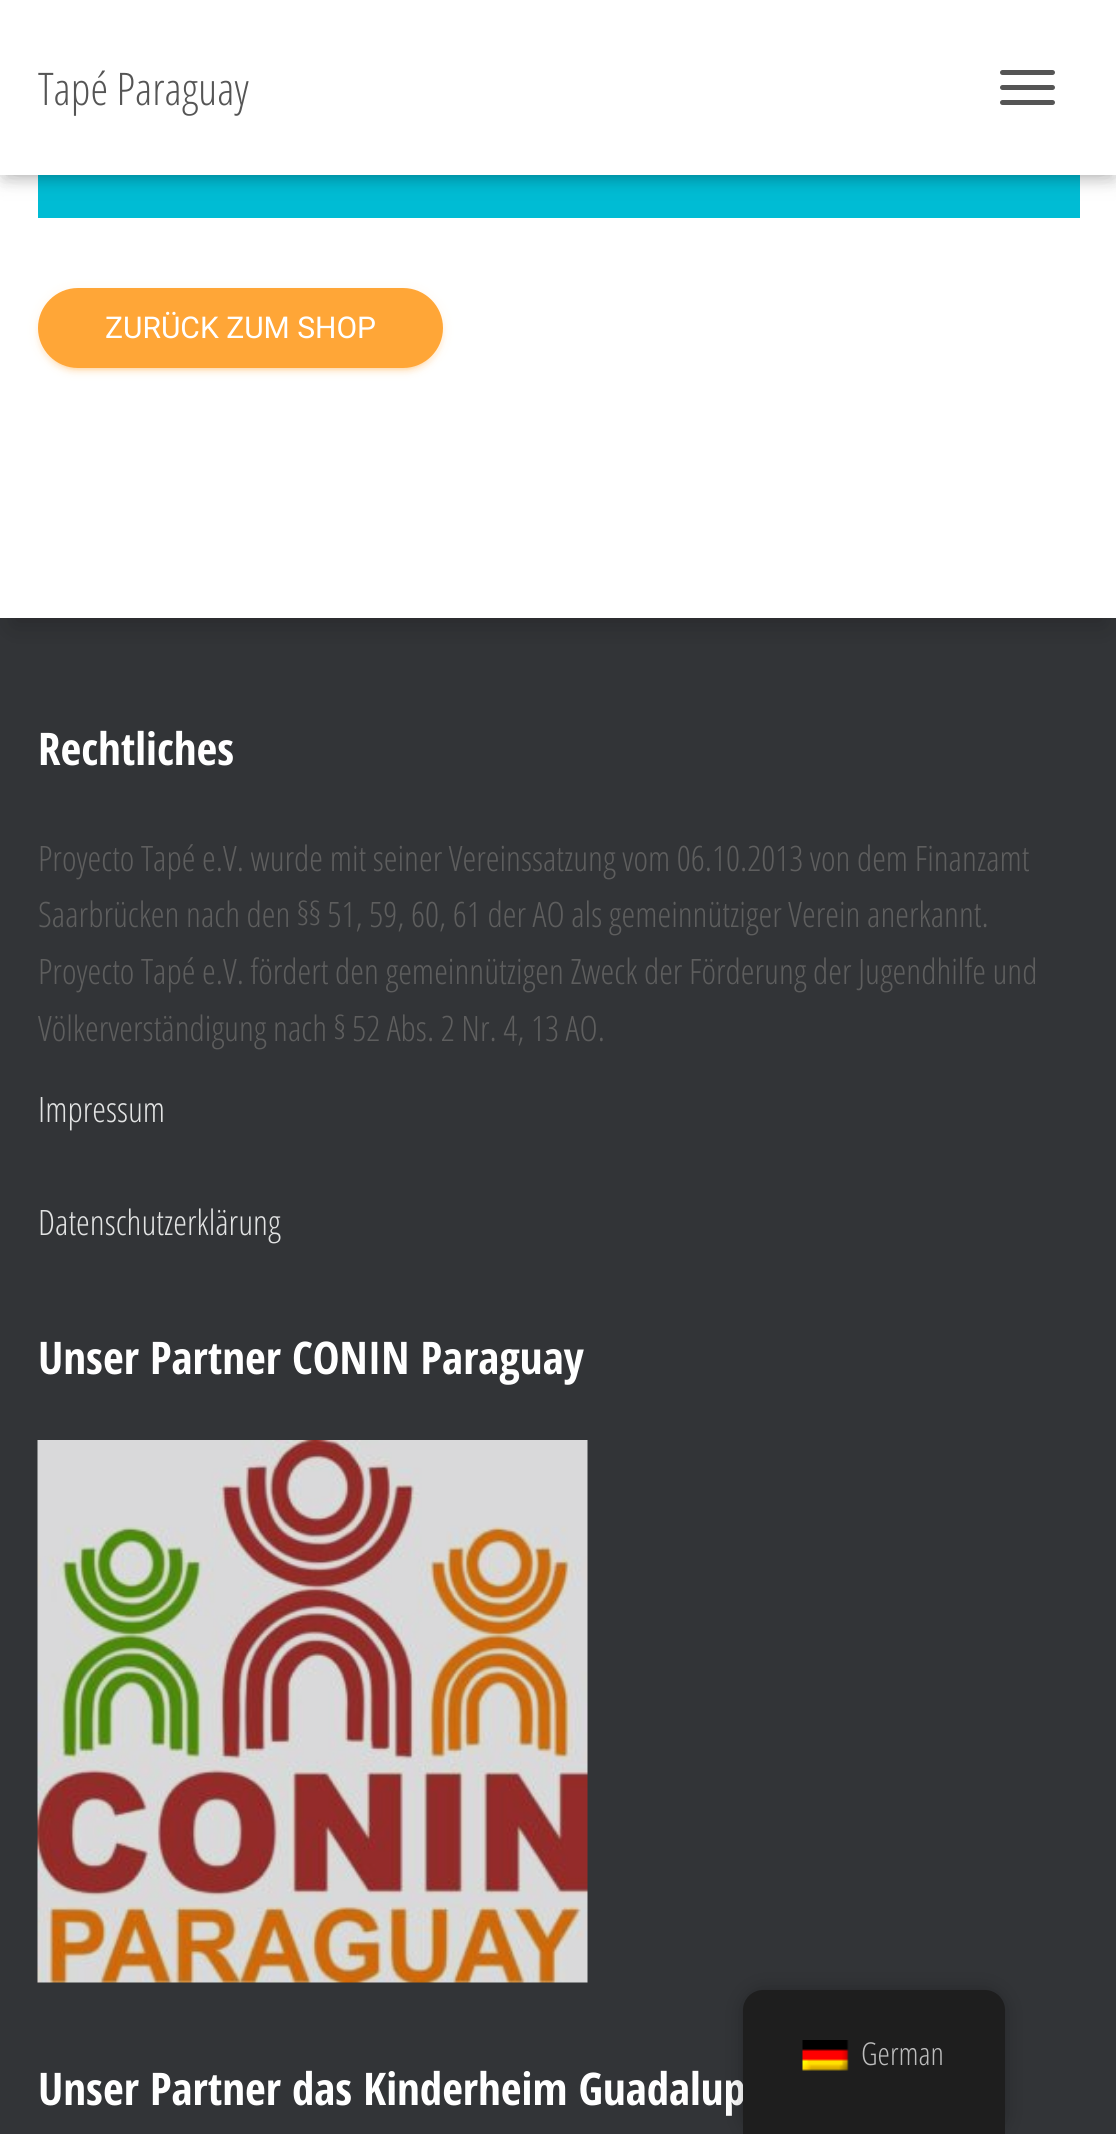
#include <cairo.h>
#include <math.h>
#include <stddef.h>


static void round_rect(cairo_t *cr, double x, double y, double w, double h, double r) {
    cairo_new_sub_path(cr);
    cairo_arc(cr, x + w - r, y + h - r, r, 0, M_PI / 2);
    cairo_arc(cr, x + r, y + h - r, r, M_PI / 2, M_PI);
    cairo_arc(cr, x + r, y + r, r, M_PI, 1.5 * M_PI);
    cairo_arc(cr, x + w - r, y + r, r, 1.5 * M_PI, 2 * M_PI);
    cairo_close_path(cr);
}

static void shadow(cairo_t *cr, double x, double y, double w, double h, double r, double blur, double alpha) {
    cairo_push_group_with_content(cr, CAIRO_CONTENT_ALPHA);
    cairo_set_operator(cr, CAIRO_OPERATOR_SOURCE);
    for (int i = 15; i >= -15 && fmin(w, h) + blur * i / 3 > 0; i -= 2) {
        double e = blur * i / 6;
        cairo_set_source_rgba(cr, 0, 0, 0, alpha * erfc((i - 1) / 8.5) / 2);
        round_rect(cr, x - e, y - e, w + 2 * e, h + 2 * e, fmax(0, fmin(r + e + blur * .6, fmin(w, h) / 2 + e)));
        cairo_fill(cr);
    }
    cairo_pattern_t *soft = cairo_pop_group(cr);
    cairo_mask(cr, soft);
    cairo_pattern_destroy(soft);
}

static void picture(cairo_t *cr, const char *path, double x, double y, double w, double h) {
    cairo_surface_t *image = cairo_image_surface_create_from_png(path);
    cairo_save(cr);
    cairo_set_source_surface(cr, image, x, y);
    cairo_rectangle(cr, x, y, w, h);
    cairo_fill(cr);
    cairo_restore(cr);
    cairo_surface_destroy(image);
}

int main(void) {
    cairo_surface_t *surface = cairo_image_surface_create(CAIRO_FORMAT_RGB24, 1116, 2134);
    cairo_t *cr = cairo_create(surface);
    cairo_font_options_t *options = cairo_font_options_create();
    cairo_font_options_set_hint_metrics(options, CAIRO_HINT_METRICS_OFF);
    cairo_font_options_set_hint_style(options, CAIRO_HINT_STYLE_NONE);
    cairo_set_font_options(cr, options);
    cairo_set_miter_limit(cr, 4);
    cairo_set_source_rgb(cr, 0.196, 0.204, 0.216);
    cairo_paint(cr);
    cairo_set_source_rgb(cr, 0, 0, 0);
    shadow(cr, 13, -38, 1092, 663, 0, 12.5, 0.2);
    cairo_set_source_rgb(cr, 1, 1, 1);
    cairo_rectangle(cr, 0, 175, 1116, 443);
    cairo_fill(cr);
    cairo_set_source_rgb(cr, 0, 0.737, 0.831);
    cairo_rectangle(cr, 38, 175, 1042, 43);
    cairo_fill(cr);
    cairo_set_source_rgb(cr, 0, 0, 0);
    shadow(cr, 5, 15, 1108, 165, 0, 6, 0.1);
    shadow(cr, 0, 3, 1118, 175, 0, 12.5, 0.12);
    shadow(cr, 15, 18, 1088, 145, 0, 12.5, 0.42);
    cairo_set_source_rgb(cr, 1, 1, 1);
    cairo_rectangle(cr, 0, 0, 1116, 175);
    cairo_fill(cr);
    cairo_select_font_face(cr, "Open Sans Condensed Light", CAIRO_FONT_SLANT_NORMAL, CAIRO_FONT_WEIGHT_NORMAL);
    cairo_set_font_size(cr, 45);
    cairo_set_source_rgb(cr, 0.333, 0.333, 0.333);
    cairo_move_to(cr, 38, 105);
    cairo_show_text(cr, "Tapé Paraguay");
    round_rect(cr, 1000, 70, 55, 5, 2.5);
    cairo_fill(cr);
    round_rect(cr, 1000, 85, 55, 5, 2.5);
    cairo_fill(cr);
    round_rect(cr, 1000, 100, 55, 5, 2.5);
    cairo_fill(cr);
    cairo_set_source_rgb(cr, 1, 0.651, 0.216);
    shadow(cr, 38, 290, 405, 80, 40, 6, 0.12);
    shadow(cr, 43, 300, 395, 70, 35, 1, 0.2);
    shadow(cr, 38, 293, 405, 80, 40, 2.5, 0.14);
    cairo_set_source_rgb(cr, 1, 0.651, 0.216);
    round_rect(cr, 38, 288, 405, 80, 40);
    cairo_fill(cr);
    cairo_select_font_face(cr, "Roboto", CAIRO_FONT_SLANT_NORMAL, CAIRO_FONT_WEIGHT_NORMAL);
    cairo_set_font_size(cr, 30);
    cairo_set_source_rgb(cr, 1, 1, 1);
    cairo_move_to(cr, 105, 338);
    cairo_show_text(cr, "ZURÜCK ZUM SHOP");
    cairo_select_font_face(cr, "Open Sans Condensed", CAIRO_FONT_SLANT_NORMAL, CAIRO_FONT_WEIGHT_BOLD);
    cairo_set_font_size(cr, 45);
    cairo_move_to(cr, 38, 765);
    cairo_show_text(cr, "Rechtliches");
    cairo_select_font_face(cr, "Open Sans Condensed Light", CAIRO_FONT_SLANT_NORMAL, CAIRO_FONT_WEIGHT_NORMAL);
    cairo_set_font_size(cr, 35);
    cairo_set_source_rgb(cr, 0.369, 0.369, 0.369);
    cairo_move_to(cr, 38, 871);
    cairo_show_text(cr, "Proyecto Tapé e.V. wurde mit seiner Vereinssatzung vom 06.10.2013 von dem Finanzamt");
    cairo_move_to(cr, 38, 927);
    cairo_show_text(cr, "Saarbrücken nach den §§ 51, 59, 60, 61 der AO als gemeinnütziger Verein anerkannt.");
    cairo_move_to(cr, 38, 984);
    cairo_show_text(cr, "Proyecto Tapé e.V. fördert den gemeinnützigen Zweck der Förderung der Jugendhilfe und");
    cairo_move_to(cr, 38, 1041);
    cairo_show_text(cr, "Völkerverständigung nach § 52 Abs. 2 Nr. 4, 13 AO.");
    cairo_set_source_rgb(cr, 0.886, 0.89, 0.89);
    cairo_move_to(cr, 38, 1122);
    cairo_show_text(cr, "Impressum");
    cairo_move_to(cr, 38, 1235);
    cairo_show_text(cr, "Datenschutzerklärung");
    cairo_select_font_face(cr, "Open Sans Condensed", CAIRO_FONT_SLANT_NORMAL, CAIRO_FONT_WEIGHT_BOLD);
    cairo_set_font_size(cr, 45);
    cairo_set_source_rgb(cr, 1, 1, 1);
    cairo_move_to(cr, 38, 1374);
    cairo_show_text(cr, "Unser Partner CONIN Paraguay");
    picture(cr, "img1.png", 37, 1440, 551, 543);
    cairo_move_to(cr, 38, 2105);
    cairo_show_text(cr, "Unser Partner das Kinderheim Guadalup");
    cairo_set_source_rgb(cr, 0, 0, 0);
    shadow(cr, 743, 1990, 262, 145, 20, 10, 0.25);
    cairo_set_source_rgb(cr, 0.118, 0.118, 0.118);
    cairo_new_path(cr);
    cairo_move_to(cr, 763, 1990);
    cairo_line_to(cr, 985, 1990);
    cairo_curve_to(cr, 996, 1990, 1005, 1999, 1005, 2010);
    cairo_line_to(cr, 1005, 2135);
    cairo_line_to(cr, 743, 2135);
    cairo_line_to(cr, 743, 2010);
    cairo_curve_to(cr, 743, 1999, 752, 1990, 763, 1990);
    cairo_close_path(cr);
    cairo_fill(cr);
    picture(cr, "img2.png", 802, 2040, 47, 31);
    cairo_select_font_face(cr, "Open Sans Condensed Light", CAIRO_FONT_SLANT_NORMAL, CAIRO_FONT_WEIGHT_NORMAL);
    cairo_set_font_size(cr, 31.5);
    cairo_set_source_rgb(cr, 0.741, 0.741, 0.741);
    cairo_move_to(cr, 861, 2065);
    cairo_show_text(cr, "German");
    cairo_surface_write_to_png(surface, "page.png");
    cairo_font_options_destroy(options);
    cairo_destroy(cr);
    cairo_surface_destroy(surface);
    return 0;
}
